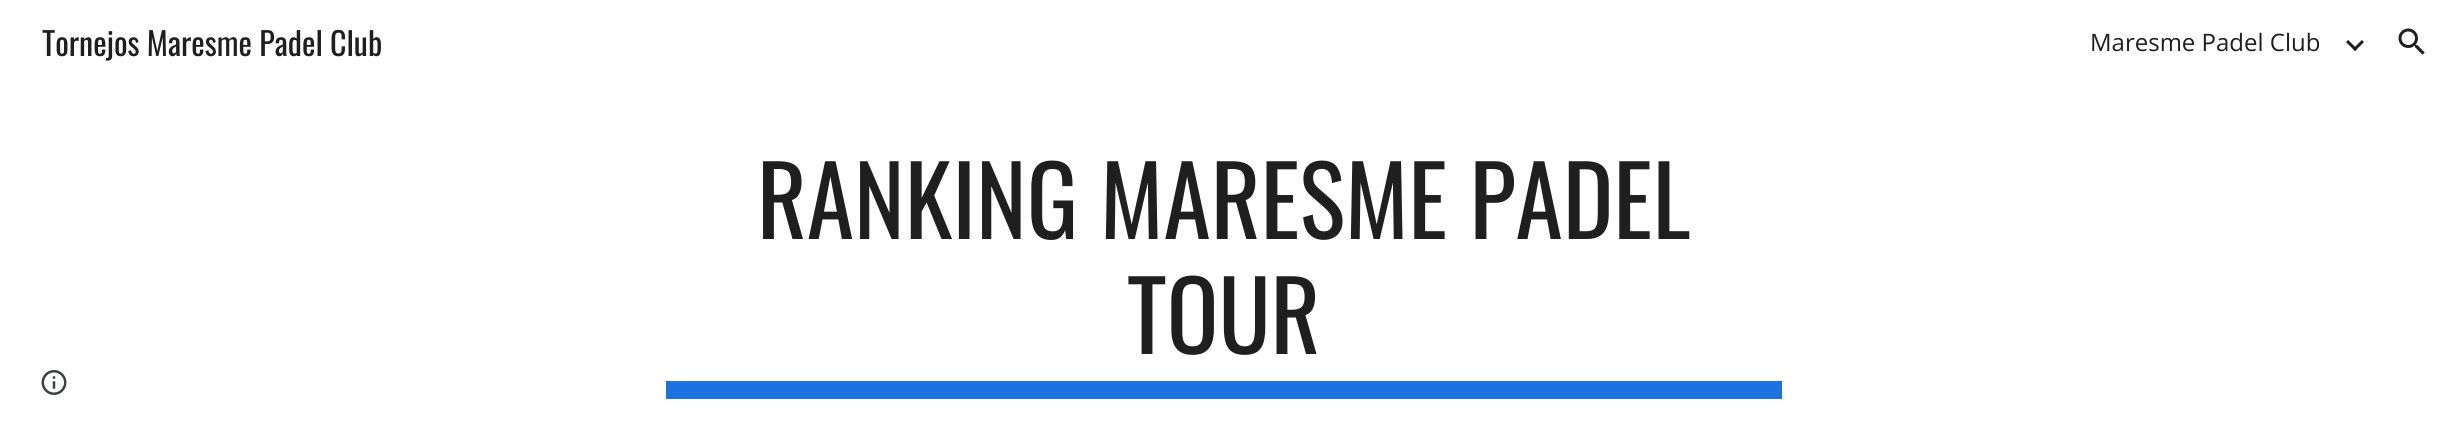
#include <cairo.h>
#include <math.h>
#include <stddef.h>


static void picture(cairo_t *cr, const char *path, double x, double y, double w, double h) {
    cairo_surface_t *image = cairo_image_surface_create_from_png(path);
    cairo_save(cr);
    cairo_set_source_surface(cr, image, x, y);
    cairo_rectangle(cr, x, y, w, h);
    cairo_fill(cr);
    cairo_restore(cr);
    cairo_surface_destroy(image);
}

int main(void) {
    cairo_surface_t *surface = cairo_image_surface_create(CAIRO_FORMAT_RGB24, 2448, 433);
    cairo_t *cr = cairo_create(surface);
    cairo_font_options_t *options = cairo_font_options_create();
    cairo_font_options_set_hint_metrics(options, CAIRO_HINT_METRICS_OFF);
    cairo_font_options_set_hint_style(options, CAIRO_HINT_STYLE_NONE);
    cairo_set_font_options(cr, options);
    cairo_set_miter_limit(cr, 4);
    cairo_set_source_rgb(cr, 1, 1, 1);
    cairo_paint(cr);
    cairo_select_font_face(cr, "Oswald", CAIRO_FONT_SLANT_NORMAL, CAIRO_FONT_WEIGHT_NORMAL);
    cairo_set_font_size(cr, 32);
    cairo_set_source_rgb(cr, 0.122, 0.122, 0.122);
    cairo_move_to(cr, 42, 56);
    cairo_show_text(cr, "Tornejos Maresme Padel Club");
    cairo_select_font_face(cr, "Open Sans", CAIRO_FONT_SLANT_NORMAL, CAIRO_FONT_WEIGHT_NORMAL);
    cairo_set_font_size(cr, 24);
    cairo_move_to(cr, 2090, 51);
    cairo_show_text(cr, "Maresme Padel Club");
    picture(cr, "img1.png", 2346, 40, 18, 11);
    picture(cr, "img2.png", 2398, 28, 27, 27);
    cairo_select_font_face(cr, "Oswald", CAIRO_FONT_SLANT_NORMAL, CAIRO_FONT_WEIGHT_NORMAL);
    cairo_set_font_size(cr, 96);
    cairo_move_to(cr, 757, 239);
    cairo_show_text(cr, "RANKING MARESME PADEL");
    cairo_move_to(cr, 1127, 354);
    cairo_show_text(cr, "TOUR");
    cairo_set_source_rgb(cr, 0.118, 0.443, 0.882);
    cairo_rectangle(cr, 666, 381, 1116, 18);
    cairo_fill(cr);
    picture(cr, "img3.png", 41, 370, 26, 25);
    cairo_surface_write_to_png(surface, "page.png");
    cairo_font_options_destroy(options);
    cairo_destroy(cr);
    cairo_surface_destroy(surface);
    return 0;
}
